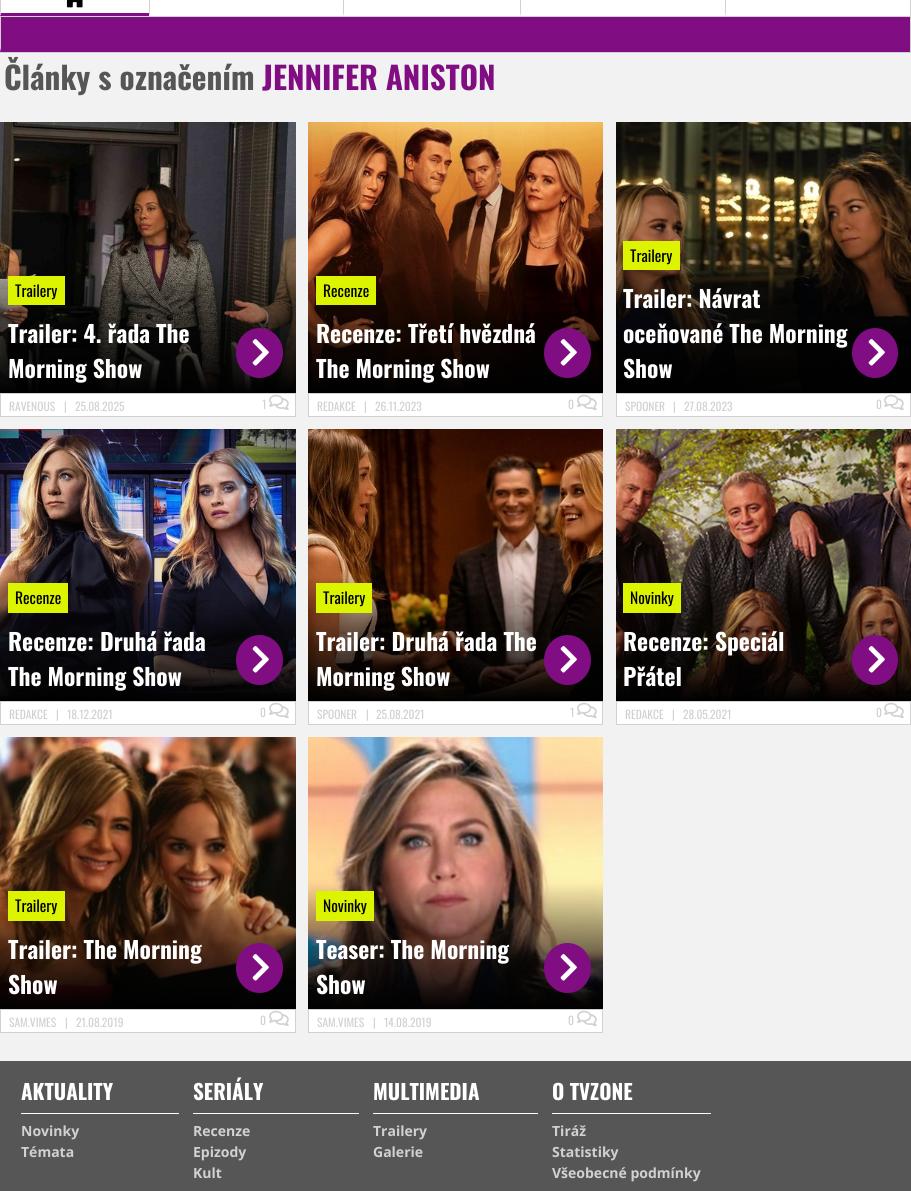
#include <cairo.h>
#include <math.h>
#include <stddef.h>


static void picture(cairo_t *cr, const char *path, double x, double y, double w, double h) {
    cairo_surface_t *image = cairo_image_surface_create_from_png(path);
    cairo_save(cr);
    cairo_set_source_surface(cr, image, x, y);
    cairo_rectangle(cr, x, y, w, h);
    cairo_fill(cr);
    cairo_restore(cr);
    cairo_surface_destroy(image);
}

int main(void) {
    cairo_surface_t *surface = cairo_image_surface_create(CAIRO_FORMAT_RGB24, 911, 1191);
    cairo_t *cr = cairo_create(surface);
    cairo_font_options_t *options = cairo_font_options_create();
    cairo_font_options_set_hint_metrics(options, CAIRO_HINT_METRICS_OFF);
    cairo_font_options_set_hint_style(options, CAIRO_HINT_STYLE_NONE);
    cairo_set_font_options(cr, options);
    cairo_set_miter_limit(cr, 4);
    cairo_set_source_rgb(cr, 0.949, 0.949, 0.949);
    cairo_paint(cr);
    cairo_set_source_rgb(cr, 1, 1, 1);
    cairo_rectangle(cr, 0, 0, 910, 16);
    cairo_fill(cr);
    cairo_set_source_rgb(cr, 0.82, 0.82, 0.82);
    cairo_rectangle(cr, 910, 0, 1, 53);
    cairo_fill(cr);
    cairo_rectangle(cr, 0, 16, 911, 1);
    cairo_fill(cr);
    cairo_set_source_rgb(cr, 0.502, 0.051, 0.51);
    cairo_new_path(cr);
    cairo_move_to(cr, 149, 16);
    cairo_line_to(cr, 0, 16);
    cairo_line_to(cr, 1, 13);
    cairo_line_to(cr, 149, 13);
    cairo_close_path(cr);
    cairo_fill(cr);
    cairo_set_source_rgb(cr, 0.82, 0.82, 0.82);
    cairo_new_path(cr);
    cairo_move_to(cr, 0, 16);
    cairo_line_to(cr, 0, -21);
    cairo_line_to(cr, 1, -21);
    cairo_line_to(cr, 1, 13);
    cairo_close_path(cr);
    cairo_fill(cr);
    picture(cr, "img1.png", 64, 0, 21, 8);
    cairo_new_path(cr);
    cairo_move_to(cr, 149, 16);
    cairo_line_to(cr, 149, -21);
    cairo_line_to(cr, 150, -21);
    cairo_line_to(cr, 150, 13);
    cairo_close_path(cr);
    cairo_fill(cr);
    cairo_new_path(cr);
    cairo_move_to(cr, 343, 16);
    cairo_line_to(cr, 343, -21);
    cairo_line_to(cr, 344, -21);
    cairo_line_to(cr, 344, 13);
    cairo_close_path(cr);
    cairo_fill(cr);
    cairo_new_path(cr);
    cairo_move_to(cr, 520, 16);
    cairo_line_to(cr, 520, -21);
    cairo_line_to(cr, 521, -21);
    cairo_line_to(cr, 521, 13);
    cairo_close_path(cr);
    cairo_fill(cr);
    cairo_new_path(cr);
    cairo_move_to(cr, 725, 16);
    cairo_line_to(cr, 725, -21);
    cairo_line_to(cr, 726, -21);
    cairo_line_to(cr, 726, 13);
    cairo_close_path(cr);
    cairo_fill(cr);
    cairo_set_source_rgb(cr, 0.502, 0.051, 0.51);
    cairo_rectangle(cr, 0, 17, 910, 35);
    cairo_fill(cr);
    cairo_set_source_rgb(cr, 0.82, 0.82, 0.82);
    cairo_rectangle(cr, 0, 52, 911, 1);
    cairo_fill(cr);
    cairo_new_path(cr);
    cairo_move_to(cr, 0, 52);
    cairo_line_to(cr, 0, 17);
    cairo_line_to(cr, 1, 17);
    cairo_line_to(cr, 1, 48);
    cairo_close_path(cr);
    cairo_fill(cr);
    cairo_select_font_face(cr, "Oswald", CAIRO_FONT_SLANT_NORMAL, CAIRO_FONT_WEIGHT_BOLD);
    cairo_set_font_size(cr, 31.25);
    cairo_set_source_rgb(cr, 0.337, 0.337, 0.337);
    cairo_move_to(cr, 4, 90);
    cairo_show_text(cr, "Články s označením");
    cairo_set_source_rgb(cr, 0.502, 0.051, 0.51);
    cairo_move_to(cr, 262, 90);
    cairo_show_text(cr, "JENNIFER ANISTON");
    picture(cr, "img2.png", 0, 122, 296, 271);
    cairo_set_source_rgb(cr, 0.863, 0.957, 0);
    cairo_rectangle(cr, 8, 276, 57, 29);
    cairo_fill(cr);
    cairo_select_font_face(cr, "Oswald", CAIRO_FONT_SLANT_NORMAL, CAIRO_FONT_WEIGHT_NORMAL);
    cairo_set_font_size(cr, 15.5);
    cairo_set_source_rgb(cr, 0, 0, 0);
    cairo_move_to(cr, 15, 297);
    cairo_show_text(cr, "Trailery");
    cairo_select_font_face(cr, "Oswald", CAIRO_FONT_SLANT_NORMAL, CAIRO_FONT_WEIGHT_BOLD);
    cairo_set_font_size(cr, 23.5);
    cairo_set_source_rgb(cr, 1, 1, 1);
    cairo_move_to(cr, 8, 343);
    cairo_show_text(cr, "Trailer: 4. řada The");
    cairo_move_to(cr, 8, 378);
    cairo_show_text(cr, "Morning Show");
    cairo_set_source_rgb(cr, 0.502, 0.051, 0.51);
    cairo_new_path(cr);
    cairo_move_to(cr, 259.5, 328);
    cairo_curve_to(cr, 272.5, 328, 283, 339, 283, 353);
    cairo_curve_to(cr, 283, 367, 272.5, 378, 259.5, 378);
    cairo_curve_to(cr, 246.5, 378, 236, 367, 236, 353);
    cairo_curve_to(cr, 236, 339, 246.5, 328, 259.5, 328);
    cairo_close_path(cr);
    cairo_fill(cr);
    picture(cr, "img3.png", 252, 339, 17, 27);
    cairo_set_source_rgb(cr, 1, 1, 1);
    cairo_rectangle(cr, 0.5, 393.5, 295, 23);
    cairo_fill_preserve(cr);
    cairo_set_source_rgb(cr, 0.82, 0.82, 0.82);
    cairo_set_line_width(cr, 1);
    cairo_stroke(cr);
    cairo_select_font_face(cr, "Oswald", CAIRO_FONT_SLANT_NORMAL, CAIRO_FONT_WEIGHT_NORMAL);
    cairo_set_font_size(cr, 11.5);
    cairo_move_to(cr, 9, 411);
    cairo_show_text(cr, "RAVENOUS");
    cairo_move_to(cr, 64, 411);
    cairo_show_text(cr, "|");
    cairo_move_to(cr, 75, 411);
    cairo_show_text(cr, "25.08.2025");
    cairo_move_to(cr, 262, 409);
    cairo_show_text(cr, "1");
    picture(cr, "img4.png", 269, 394, 20, 16);
    picture(cr, "img5.png", 308, 122, 295, 271);
    cairo_set_source_rgb(cr, 0.863, 0.957, 0);
    cairo_rectangle(cr, 316, 276, 60, 29);
    cairo_fill(cr);
    cairo_set_font_size(cr, 15.5);
    cairo_set_source_rgb(cr, 0, 0, 0);
    cairo_move_to(cr, 323, 297);
    cairo_show_text(cr, "Recenze");
    cairo_select_font_face(cr, "Oswald", CAIRO_FONT_SLANT_NORMAL, CAIRO_FONT_WEIGHT_BOLD);
    cairo_set_font_size(cr, 23.5);
    cairo_set_source_rgb(cr, 1, 1, 1);
    cairo_move_to(cr, 316, 343);
    cairo_show_text(cr, "Recenze: Třetí hvězdná");
    cairo_move_to(cr, 316, 378);
    cairo_show_text(cr, "The Morning Show");
    cairo_set_source_rgb(cr, 0.502, 0.051, 0.51);
    cairo_new_path(cr);
    cairo_move_to(cr, 567.5, 328);
    cairo_curve_to(cr, 580.5, 328, 591, 339, 591, 353);
    cairo_curve_to(cr, 591, 367, 580.5, 378, 567.5, 378);
    cairo_curve_to(cr, 554.5, 378, 544, 367, 544, 353);
    cairo_curve_to(cr, 544, 339, 554.5, 328, 567.5, 328);
    cairo_close_path(cr);
    cairo_fill(cr);
    picture(cr, "img3.png", 560, 339, 17, 27);
    cairo_set_source_rgb(cr, 1, 1, 1);
    cairo_rectangle(cr, 308.5, 393.5, 294, 23);
    cairo_fill_preserve(cr);
    cairo_set_source_rgb(cr, 0.82, 0.82, 0.82);
    cairo_stroke(cr);
    cairo_select_font_face(cr, "Oswald", CAIRO_FONT_SLANT_NORMAL, CAIRO_FONT_WEIGHT_NORMAL);
    cairo_set_font_size(cr, 11.5);
    cairo_move_to(cr, 317, 411);
    cairo_show_text(cr, "REDAKCE");
    cairo_move_to(cr, 364, 411);
    cairo_show_text(cr, "|");
    cairo_move_to(cr, 375, 411);
    cairo_show_text(cr, "26.11.2023");
    cairo_move_to(cr, 568, 409);
    cairo_show_text(cr, "0");
    picture(cr, "img4.png", 577, 394, 20, 16);
    picture(cr, "img6.png", 616, 122, 295, 271);
    cairo_set_source_rgb(cr, 0.863, 0.957, 0);
    cairo_rectangle(cr, 623, 241, 57, 29);
    cairo_fill(cr);
    cairo_set_font_size(cr, 15.5);
    cairo_set_source_rgb(cr, 0, 0, 0);
    cairo_move_to(cr, 630, 262);
    cairo_show_text(cr, "Trailery");
    cairo_select_font_face(cr, "Oswald", CAIRO_FONT_SLANT_NORMAL, CAIRO_FONT_WEIGHT_BOLD);
    cairo_set_font_size(cr, 23.5);
    cairo_set_source_rgb(cr, 1, 1, 1);
    cairo_move_to(cr, 623, 308);
    cairo_show_text(cr, "Trailer: Návrat");
    cairo_move_to(cr, 623, 343);
    cairo_show_text(cr, "oceňované The Morning");
    cairo_move_to(cr, 623, 378);
    cairo_show_text(cr, "Show");
    cairo_set_source_rgb(cr, 0.502, 0.051, 0.51);
    cairo_new_path(cr);
    cairo_move_to(cr, 875, 328);
    cairo_curve_to(cr, 887.5, 328, 898, 339, 898, 353);
    cairo_curve_to(cr, 898, 367, 887.5, 378, 875, 378);
    cairo_curve_to(cr, 862.5, 378, 852, 367, 852, 353);
    cairo_curve_to(cr, 852, 339, 862.5, 328, 875, 328);
    cairo_close_path(cr);
    cairo_fill(cr);
    picture(cr, "img3.png", 868, 339, 17, 27);
    cairo_set_source_rgb(cr, 1, 1, 1);
    cairo_rectangle(cr, 616.5, 393.5, 294, 23);
    cairo_fill_preserve(cr);
    cairo_set_source_rgb(cr, 0.82, 0.82, 0.82);
    cairo_stroke(cr);
    cairo_select_font_face(cr, "Oswald", CAIRO_FONT_SLANT_NORMAL, CAIRO_FONT_WEIGHT_NORMAL);
    cairo_set_font_size(cr, 11.5);
    cairo_move_to(cr, 625, 411);
    cairo_show_text(cr, "SPOONER");
    cairo_move_to(cr, 673, 411);
    cairo_show_text(cr, "|");
    cairo_move_to(cr, 684, 411);
    cairo_show_text(cr, "27.08.2023");
    cairo_move_to(cr, 876, 409);
    cairo_show_text(cr, "0");
    picture(cr, "img4.png", 884, 394, 20, 16);
    picture(cr, "img7.png", 0, 429, 296, 272);
    cairo_set_source_rgb(cr, 0.863, 0.957, 0);
    cairo_rectangle(cr, 8, 583, 60, 30);
    cairo_fill(cr);
    cairo_set_font_size(cr, 15.5);
    cairo_set_source_rgb(cr, 0, 0, 0);
    cairo_move_to(cr, 15, 604);
    cairo_show_text(cr, "Recenze");
    cairo_select_font_face(cr, "Oswald", CAIRO_FONT_SLANT_NORMAL, CAIRO_FONT_WEIGHT_BOLD);
    cairo_set_font_size(cr, 23.5);
    cairo_set_source_rgb(cr, 1, 1, 1);
    cairo_move_to(cr, 8, 651);
    cairo_show_text(cr, "Recenze: Druhá řada");
    cairo_move_to(cr, 8, 686);
    cairo_show_text(cr, "The Morning Show");
    cairo_set_source_rgb(cr, 0.502, 0.051, 0.51);
    cairo_new_path(cr);
    cairo_move_to(cr, 259.5, 635);
    cairo_curve_to(cr, 272.5, 635, 283, 646, 283, 660);
    cairo_curve_to(cr, 283, 674, 272.5, 685, 259.5, 685);
    cairo_curve_to(cr, 246.5, 685, 236, 674, 236, 660);
    cairo_curve_to(cr, 236, 646, 246.5, 635, 259.5, 635);
    cairo_close_path(cr);
    cairo_fill(cr);
    picture(cr, "img3.png", 252, 646, 17, 27);
    cairo_set_source_rgb(cr, 1, 1, 1);
    cairo_rectangle(cr, 0.5, 701.5, 295, 23);
    cairo_fill_preserve(cr);
    cairo_set_source_rgb(cr, 0.82, 0.82, 0.82);
    cairo_stroke(cr);
    cairo_select_font_face(cr, "Oswald", CAIRO_FONT_SLANT_NORMAL, CAIRO_FONT_WEIGHT_NORMAL);
    cairo_set_font_size(cr, 11.5);
    cairo_move_to(cr, 9, 719);
    cairo_show_text(cr, "REDAKCE");
    cairo_move_to(cr, 56, 719);
    cairo_show_text(cr, "|");
    cairo_move_to(cr, 67, 719);
    cairo_show_text(cr, "18.12.2021");
    cairo_move_to(cr, 260, 717);
    cairo_show_text(cr, "0");
    picture(cr, "img4.png", 269, 702, 20, 16);
    picture(cr, "img8.png", 308, 429, 295, 272);
    cairo_set_source_rgb(cr, 0.863, 0.957, 0);
    cairo_rectangle(cr, 316, 583, 56, 30);
    cairo_fill(cr);
    cairo_set_font_size(cr, 15.5);
    cairo_set_source_rgb(cr, 0, 0, 0);
    cairo_move_to(cr, 323, 604);
    cairo_show_text(cr, "Trailery");
    cairo_select_font_face(cr, "Oswald", CAIRO_FONT_SLANT_NORMAL, CAIRO_FONT_WEIGHT_BOLD);
    cairo_set_font_size(cr, 23.5);
    cairo_set_source_rgb(cr, 1, 1, 1);
    cairo_move_to(cr, 316, 651);
    cairo_show_text(cr, "Trailer: Druhá řada The");
    cairo_move_to(cr, 316, 686);
    cairo_show_text(cr, "Morning Show");
    cairo_set_source_rgb(cr, 0.502, 0.051, 0.51);
    cairo_new_path(cr);
    cairo_move_to(cr, 567.5, 635);
    cairo_curve_to(cr, 580.5, 635, 591, 646, 591, 660);
    cairo_curve_to(cr, 591, 674, 580.5, 685, 567.5, 685);
    cairo_curve_to(cr, 554.5, 685, 544, 674, 544, 660);
    cairo_curve_to(cr, 544, 646, 554.5, 635, 567.5, 635);
    cairo_close_path(cr);
    cairo_fill(cr);
    picture(cr, "img3.png", 560, 646, 17, 27);
    cairo_set_source_rgb(cr, 1, 1, 1);
    cairo_rectangle(cr, 308.5, 701.5, 294, 23);
    cairo_fill_preserve(cr);
    cairo_set_source_rgb(cr, 0.82, 0.82, 0.82);
    cairo_stroke(cr);
    cairo_select_font_face(cr, "Oswald", CAIRO_FONT_SLANT_NORMAL, CAIRO_FONT_WEIGHT_NORMAL);
    cairo_set_font_size(cr, 11.5);
    cairo_move_to(cr, 317, 719);
    cairo_show_text(cr, "SPOONER");
    cairo_move_to(cr, 366, 719);
    cairo_show_text(cr, "|");
    cairo_move_to(cr, 376, 719);
    cairo_show_text(cr, "25.08.2021");
    cairo_move_to(cr, 570, 717);
    cairo_show_text(cr, "1");
    picture(cr, "img4.png", 577, 702, 20, 16);
    picture(cr, "img9.png", 616, 429, 295, 272);
    cairo_set_source_rgb(cr, 0.863, 0.957, 0);
    cairo_rectangle(cr, 623, 583, 58, 30);
    cairo_fill(cr);
    cairo_set_font_size(cr, 15.5);
    cairo_set_source_rgb(cr, 0, 0, 0);
    cairo_move_to(cr, 630, 604);
    cairo_show_text(cr, "Novinky");
    cairo_select_font_face(cr, "Oswald", CAIRO_FONT_SLANT_NORMAL, CAIRO_FONT_WEIGHT_BOLD);
    cairo_set_font_size(cr, 23.5);
    cairo_set_source_rgb(cr, 1, 1, 1);
    cairo_move_to(cr, 623, 651);
    cairo_show_text(cr, "Recenze: Speciál");
    cairo_move_to(cr, 623, 686);
    cairo_show_text(cr, "Přátel");
    cairo_set_source_rgb(cr, 0.502, 0.051, 0.51);
    cairo_new_path(cr);
    cairo_move_to(cr, 875, 635);
    cairo_curve_to(cr, 887.5, 635, 898, 646, 898, 660);
    cairo_curve_to(cr, 898, 674, 887.5, 685, 875, 685);
    cairo_curve_to(cr, 862.5, 685, 852, 674, 852, 660);
    cairo_curve_to(cr, 852, 646, 862.5, 635, 875, 635);
    cairo_close_path(cr);
    cairo_fill(cr);
    picture(cr, "img3.png", 868, 646, 17, 27);
    cairo_set_source_rgb(cr, 1, 1, 1);
    cairo_rectangle(cr, 616.5, 701.5, 294, 23);
    cairo_fill_preserve(cr);
    cairo_set_source_rgb(cr, 0.82, 0.82, 0.82);
    cairo_stroke(cr);
    cairo_select_font_face(cr, "Oswald", CAIRO_FONT_SLANT_NORMAL, CAIRO_FONT_WEIGHT_NORMAL);
    cairo_set_font_size(cr, 11.5);
    cairo_move_to(cr, 625, 719);
    cairo_show_text(cr, "REDAKCE");
    cairo_move_to(cr, 672, 719);
    cairo_show_text(cr, "|");
    cairo_move_to(cr, 683, 719);
    cairo_show_text(cr, "28.05.2021");
    cairo_move_to(cr, 876, 717);
    cairo_show_text(cr, "0");
    picture(cr, "img4.png", 884, 702, 20, 16);
    picture(cr, "img10.png", 0, 737, 296, 272);
    cairo_set_source_rgb(cr, 0.863, 0.957, 0);
    cairo_rectangle(cr, 8, 891, 57, 30);
    cairo_fill(cr);
    cairo_set_font_size(cr, 15.5);
    cairo_set_source_rgb(cr, 0, 0, 0);
    cairo_move_to(cr, 15, 912);
    cairo_show_text(cr, "Trailery");
    cairo_select_font_face(cr, "Oswald", CAIRO_FONT_SLANT_NORMAL, CAIRO_FONT_WEIGHT_BOLD);
    cairo_set_font_size(cr, 23.5);
    cairo_set_source_rgb(cr, 1, 1, 1);
    cairo_move_to(cr, 8, 959);
    cairo_show_text(cr, "Trailer: The Morning");
    cairo_move_to(cr, 8, 994);
    cairo_show_text(cr, "Show");
    cairo_set_source_rgb(cr, 0.502, 0.051, 0.51);
    cairo_new_path(cr);
    cairo_move_to(cr, 259.5, 943);
    cairo_curve_to(cr, 272.5, 943, 283, 954, 283, 968);
    cairo_curve_to(cr, 283, 982, 272.5, 993, 259.5, 993);
    cairo_curve_to(cr, 246.5, 993, 236, 982, 236, 968);
    cairo_curve_to(cr, 236, 954, 246.5, 943, 259.5, 943);
    cairo_close_path(cr);
    cairo_fill(cr);
    picture(cr, "img3.png", 252, 954, 17, 27);
    cairo_set_source_rgb(cr, 1, 1, 1);
    cairo_rectangle(cr, 0.5, 1009.5, 295, 23);
    cairo_fill_preserve(cr);
    cairo_set_source_rgb(cr, 0.82, 0.82, 0.82);
    cairo_stroke(cr);
    cairo_select_font_face(cr, "Oswald", CAIRO_FONT_SLANT_NORMAL, CAIRO_FONT_WEIGHT_NORMAL);
    cairo_set_font_size(cr, 11.5);
    cairo_move_to(cr, 9, 1027);
    cairo_show_text(cr, "SAM.VIMES");
    cairo_move_to(cr, 65, 1027);
    cairo_show_text(cr, "|");
    cairo_move_to(cr, 76, 1027);
    cairo_show_text(cr, "21.08.2019");
    cairo_move_to(cr, 260, 1025);
    cairo_show_text(cr, "0");
    picture(cr, "img4.png", 269, 1010, 20, 16);
    picture(cr, "img11.png", 308, 737, 295, 272);
    cairo_set_source_rgb(cr, 0.863, 0.957, 0);
    cairo_rectangle(cr, 316, 891, 58, 30);
    cairo_fill(cr);
    cairo_set_font_size(cr, 15.5);
    cairo_set_source_rgb(cr, 0, 0, 0);
    cairo_move_to(cr, 323, 912);
    cairo_show_text(cr, "Novinky");
    cairo_select_font_face(cr, "Oswald", CAIRO_FONT_SLANT_NORMAL, CAIRO_FONT_WEIGHT_BOLD);
    cairo_set_font_size(cr, 23.5);
    cairo_set_source_rgb(cr, 1, 1, 1);
    cairo_move_to(cr, 316, 959);
    cairo_show_text(cr, "Teaser: The Morning");
    cairo_move_to(cr, 316, 994);
    cairo_show_text(cr, "Show");
    cairo_set_source_rgb(cr, 0.502, 0.051, 0.51);
    cairo_new_path(cr);
    cairo_move_to(cr, 567.5, 943);
    cairo_curve_to(cr, 580.5, 943, 591, 954, 591, 968);
    cairo_curve_to(cr, 591, 982, 580.5, 993, 567.5, 993);
    cairo_curve_to(cr, 554.5, 993, 544, 982, 544, 968);
    cairo_curve_to(cr, 544, 954, 554.5, 943, 567.5, 943);
    cairo_close_path(cr);
    cairo_fill(cr);
    picture(cr, "img3.png", 560, 954, 17, 27);
    cairo_set_source_rgb(cr, 1, 1, 1);
    cairo_rectangle(cr, 308.5, 1009.5, 294, 23);
    cairo_fill_preserve(cr);
    cairo_set_source_rgb(cr, 0.82, 0.82, 0.82);
    cairo_stroke(cr);
    cairo_select_font_face(cr, "Oswald", CAIRO_FONT_SLANT_NORMAL, CAIRO_FONT_WEIGHT_NORMAL);
    cairo_set_font_size(cr, 11.5);
    cairo_move_to(cr, 317, 1027);
    cairo_show_text(cr, "SAM.VIMES");
    cairo_move_to(cr, 373, 1027);
    cairo_show_text(cr, "|");
    cairo_move_to(cr, 384, 1027);
    cairo_show_text(cr, "14.08.2019");
    cairo_move_to(cr, 568, 1025);
    cairo_show_text(cr, "0");
    picture(cr, "img4.png", 577, 1010, 20, 16);
    cairo_set_source_rgb(cr, 0.337, 0.337, 0.337);
    cairo_rectangle(cr, 0, 1061, 911, 130);
    cairo_fill(cr);
    cairo_set_source_rgb(cr, 1, 1, 1);
    cairo_rectangle(cr, 21, 1113, 158, 1);
    cairo_fill(cr);
    cairo_select_font_face(cr, "Oswald", CAIRO_FONT_SLANT_NORMAL, CAIRO_FONT_WEIGHT_BOLD);
    cairo_set_font_size(cr, 21);
    cairo_move_to(cr, 21, 1100);
    cairo_show_text(cr, "AKTUALITY");
    cairo_select_font_face(cr, "Open Sans", CAIRO_FONT_SLANT_NORMAL, CAIRO_FONT_WEIGHT_BOLD);
    cairo_set_font_size(cr, 14);
    cairo_set_source_rgb(cr, 0.82, 0.82, 0.82);
    cairo_move_to(cr, 21, 1136);
    cairo_show_text(cr, "Novinky");
    cairo_move_to(cr, 21, 1157);
    cairo_show_text(cr, "Témata");
    cairo_set_source_rgb(cr, 1, 1, 1);
    cairo_rectangle(cr, 193, 1113, 166, 1);
    cairo_fill(cr);
    cairo_select_font_face(cr, "Oswald", CAIRO_FONT_SLANT_NORMAL, CAIRO_FONT_WEIGHT_BOLD);
    cairo_set_font_size(cr, 21);
    cairo_move_to(cr, 193, 1100);
    cairo_show_text(cr, "SERIÁLY");
    cairo_select_font_face(cr, "Open Sans", CAIRO_FONT_SLANT_NORMAL, CAIRO_FONT_WEIGHT_BOLD);
    cairo_set_font_size(cr, 14);
    cairo_set_source_rgb(cr, 0.82, 0.82, 0.82);
    cairo_move_to(cr, 193, 1136);
    cairo_show_text(cr, "Recenze");
    cairo_move_to(cr, 193, 1157);
    cairo_show_text(cr, "Epizody");
    cairo_move_to(cr, 193, 1178);
    cairo_show_text(cr, "Kult");
    cairo_set_source_rgb(cr, 1, 1, 1);
    cairo_rectangle(cr, 373, 1113, 165, 1);
    cairo_fill(cr);
    cairo_select_font_face(cr, "Oswald", CAIRO_FONT_SLANT_NORMAL, CAIRO_FONT_WEIGHT_BOLD);
    cairo_set_font_size(cr, 21);
    cairo_move_to(cr, 373, 1100);
    cairo_show_text(cr, "MULTIMEDIA");
    cairo_select_font_face(cr, "Open Sans", CAIRO_FONT_SLANT_NORMAL, CAIRO_FONT_WEIGHT_BOLD);
    cairo_set_font_size(cr, 14);
    cairo_set_source_rgb(cr, 0.82, 0.82, 0.82);
    cairo_move_to(cr, 373, 1136);
    cairo_show_text(cr, "Trailery");
    cairo_move_to(cr, 373, 1157);
    cairo_show_text(cr, "Galerie");
    cairo_set_source_rgb(cr, 1, 1, 1);
    cairo_rectangle(cr, 552, 1113, 159, 1);
    cairo_fill(cr);
    cairo_select_font_face(cr, "Oswald", CAIRO_FONT_SLANT_NORMAL, CAIRO_FONT_WEIGHT_BOLD);
    cairo_set_font_size(cr, 21);
    cairo_move_to(cr, 552, 1100);
    cairo_show_text(cr, "O TVZONE");
    cairo_select_font_face(cr, "Open Sans", CAIRO_FONT_SLANT_NORMAL, CAIRO_FONT_WEIGHT_BOLD);
    cairo_set_font_size(cr, 14);
    cairo_set_source_rgb(cr, 0.82, 0.82, 0.82);
    cairo_move_to(cr, 552, 1136);
    cairo_show_text(cr, "Tiráž");
    cairo_move_to(cr, 552, 1157);
    cairo_show_text(cr, "Statistiky");
    cairo_move_to(cr, 552, 1178);
    cairo_show_text(cr, "Všeobecné podmínky");
    cairo_surface_write_to_png(surface, "page.png");
    cairo_font_options_destroy(options);
    cairo_destroy(cr);
    cairo_surface_destroy(surface);
    return 0;
}
